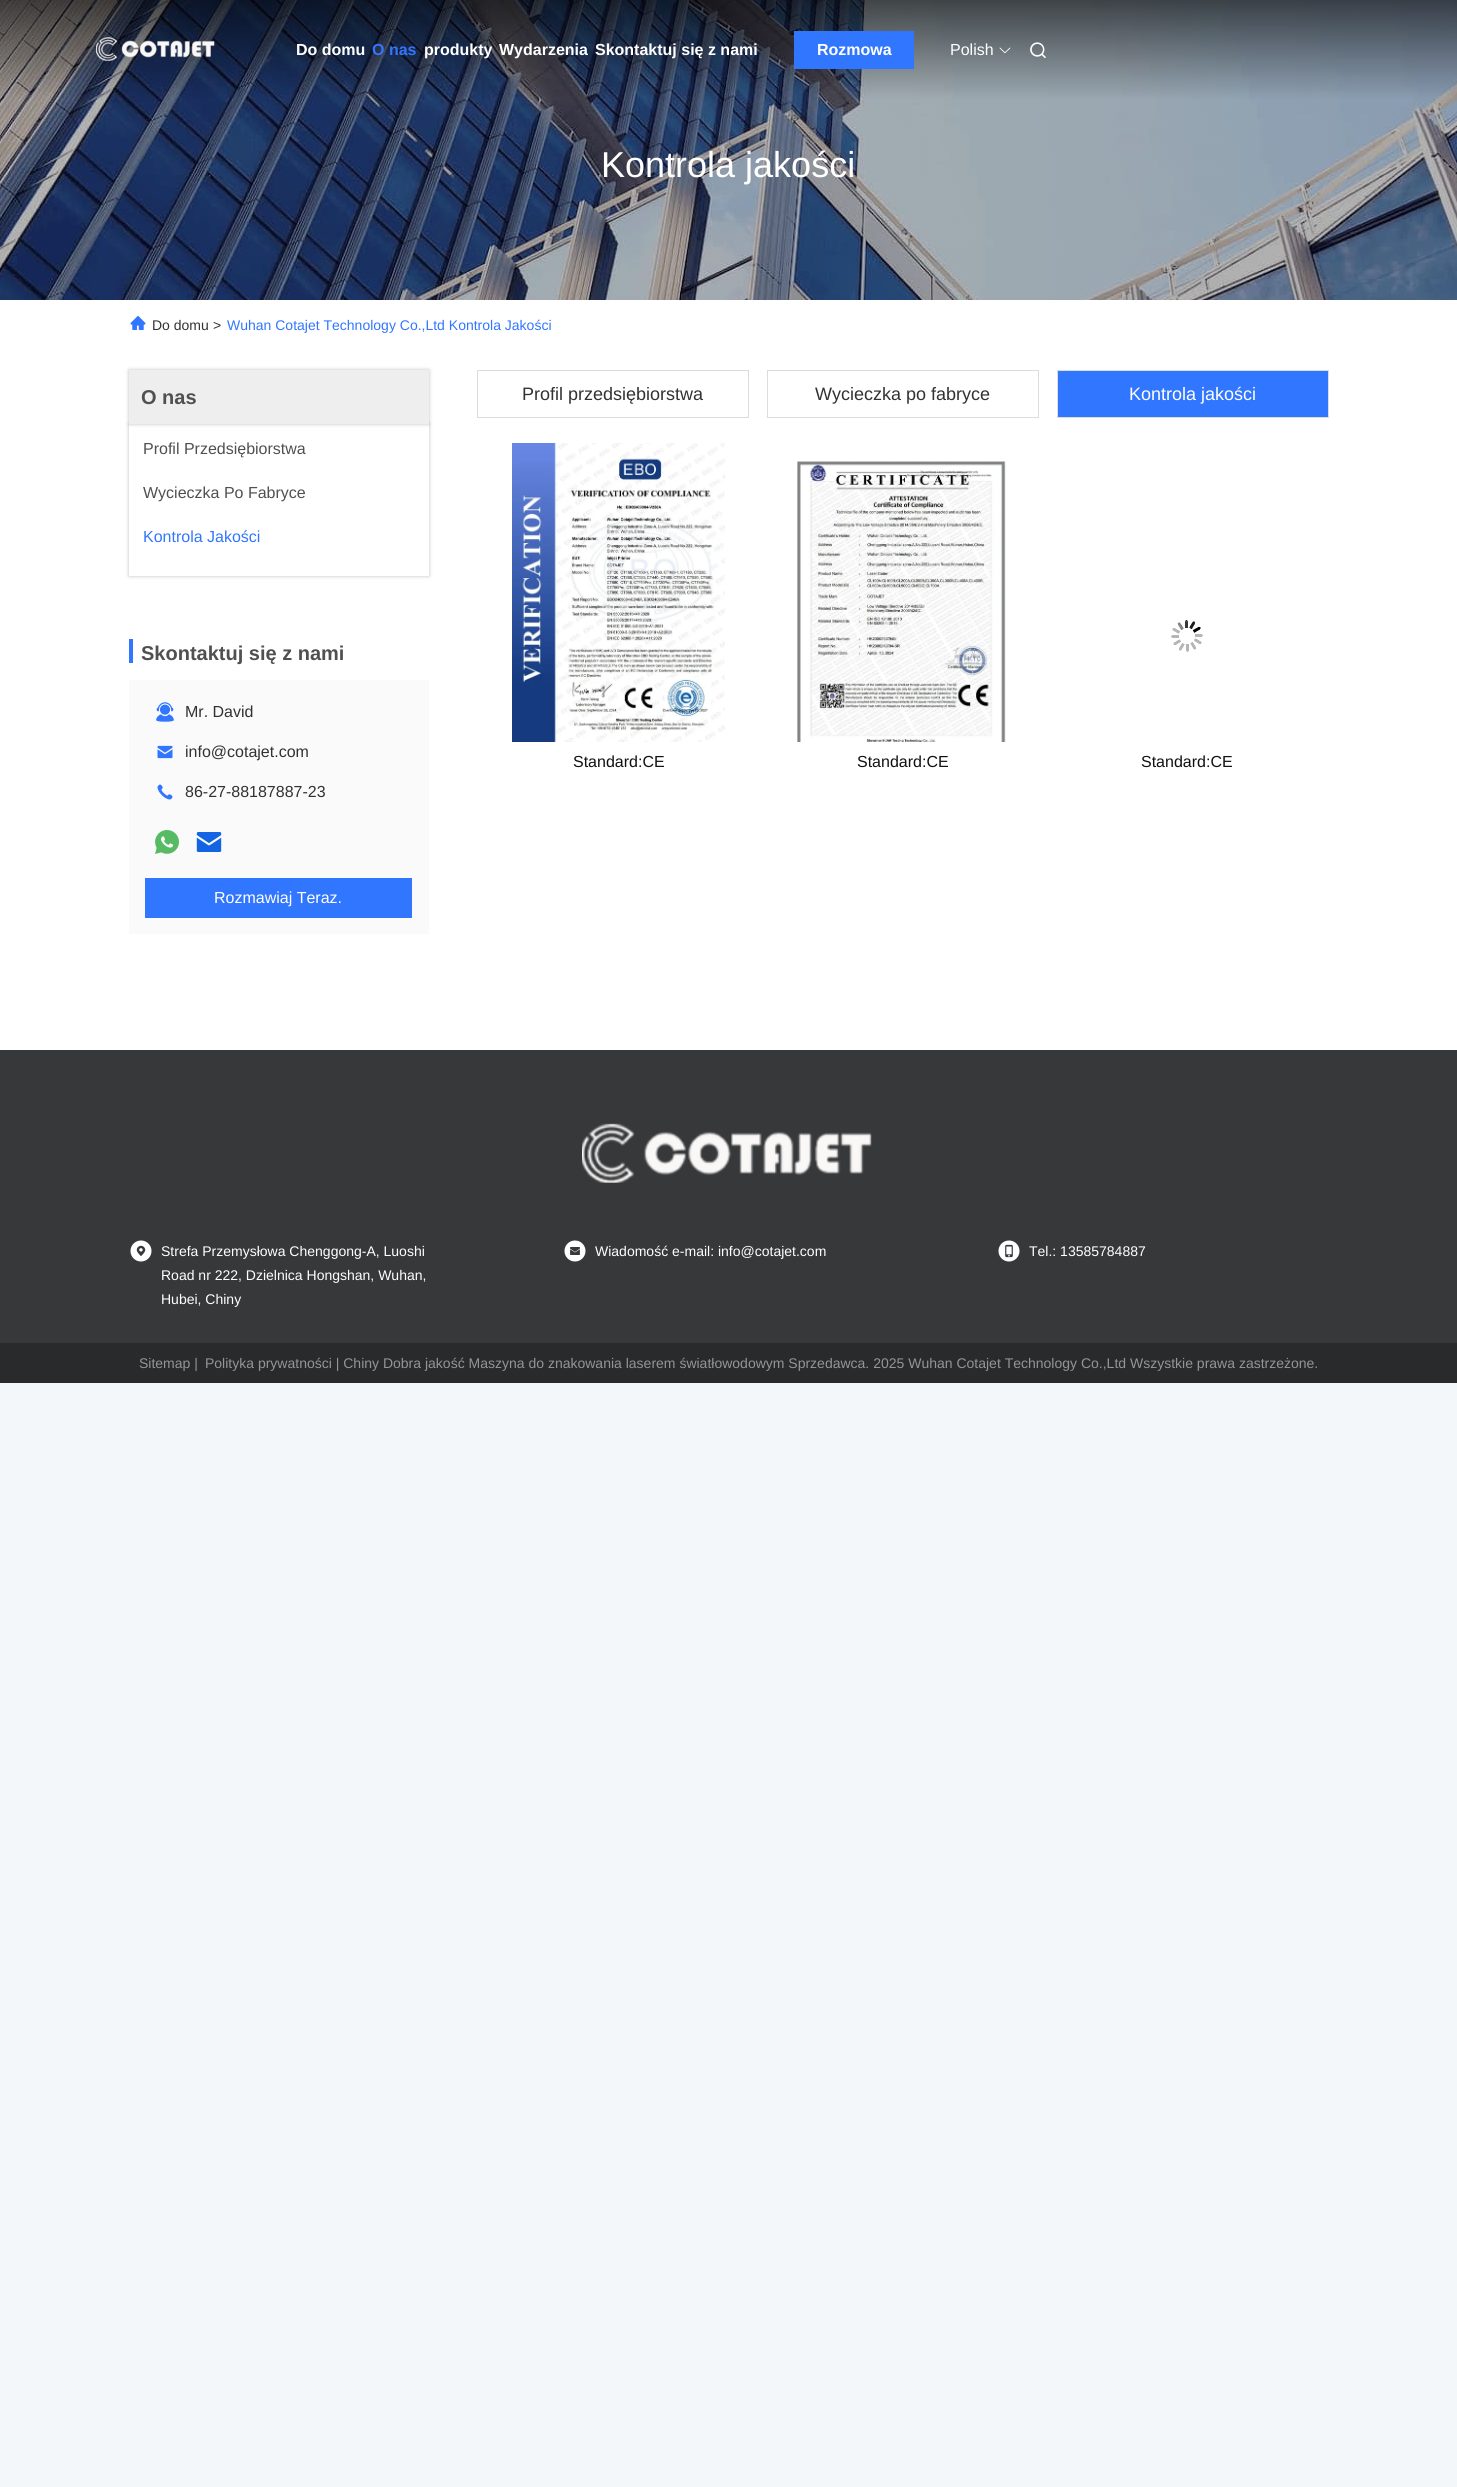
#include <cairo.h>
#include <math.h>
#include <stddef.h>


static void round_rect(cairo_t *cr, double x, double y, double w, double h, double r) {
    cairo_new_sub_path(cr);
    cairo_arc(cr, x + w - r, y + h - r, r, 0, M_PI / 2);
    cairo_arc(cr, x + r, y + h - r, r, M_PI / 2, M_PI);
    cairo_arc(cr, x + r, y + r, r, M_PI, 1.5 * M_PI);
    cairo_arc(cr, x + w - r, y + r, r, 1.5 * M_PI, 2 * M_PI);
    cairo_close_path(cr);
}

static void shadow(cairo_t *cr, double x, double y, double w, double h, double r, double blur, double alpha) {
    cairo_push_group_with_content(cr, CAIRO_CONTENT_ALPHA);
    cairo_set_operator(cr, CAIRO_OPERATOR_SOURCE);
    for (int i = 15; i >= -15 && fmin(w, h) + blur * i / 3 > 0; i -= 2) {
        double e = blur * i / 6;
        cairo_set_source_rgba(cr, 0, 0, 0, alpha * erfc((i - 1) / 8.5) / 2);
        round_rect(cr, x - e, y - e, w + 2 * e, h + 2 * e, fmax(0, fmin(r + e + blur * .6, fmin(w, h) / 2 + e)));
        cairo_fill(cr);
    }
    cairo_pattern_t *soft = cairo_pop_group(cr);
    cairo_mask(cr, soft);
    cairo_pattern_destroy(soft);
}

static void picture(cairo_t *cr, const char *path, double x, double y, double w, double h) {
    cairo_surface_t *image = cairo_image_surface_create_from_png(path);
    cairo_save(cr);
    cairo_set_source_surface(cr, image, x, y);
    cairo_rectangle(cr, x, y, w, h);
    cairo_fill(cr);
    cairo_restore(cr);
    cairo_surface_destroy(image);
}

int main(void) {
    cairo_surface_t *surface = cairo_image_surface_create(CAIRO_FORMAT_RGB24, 1457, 2487);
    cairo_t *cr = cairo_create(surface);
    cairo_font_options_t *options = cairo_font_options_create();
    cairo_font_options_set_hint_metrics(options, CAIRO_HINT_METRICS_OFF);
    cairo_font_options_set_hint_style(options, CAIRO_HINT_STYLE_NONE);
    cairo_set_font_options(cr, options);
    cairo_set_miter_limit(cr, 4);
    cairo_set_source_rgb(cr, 0.957, 0.965, 0.976);
    cairo_paint(cr);
    picture(cr, "img4.png", 0, 0, 1457, 300);
    picture(cr, "img1.png", 96, 37, 119, 24);
    cairo_select_font_face(cr, "Liberation Sans", CAIRO_FONT_SLANT_NORMAL, CAIRO_FONT_WEIGHT_BOLD);
    cairo_set_font_size(cr, 16);
    cairo_set_source_rgb(cr, 1, 1, 1);
    cairo_move_to(cr, 296, 55);
    cairo_show_text(cr, "Do domu");
    cairo_set_source_rgb(cr, 0.192, 0.463, 1);
    cairo_move_to(cr, 372, 55);
    cairo_show_text(cr, "O nas");
    cairo_set_source_rgb(cr, 1, 1, 1);
    cairo_move_to(cr, 424, 55);
    cairo_show_text(cr, "produkty");
    cairo_move_to(cr, 499, 55);
    cairo_show_text(cr, "Wydarzenia");
    cairo_move_to(cr, 595, 55);
    cairo_show_text(cr, "Skontaktuj się z nami");
    cairo_set_source_rgb(cr, 0.192, 0.463, 1);
    cairo_rectangle(cr, 794, 31, 120, 38);
    cairo_fill(cr);
    cairo_set_source_rgb(cr, 1, 1, 1);
    cairo_move_to(cr, 817, 55);
    cairo_show_text(cr, "Rozmowa");
    cairo_select_font_face(cr, "Liberation Sans", CAIRO_FONT_SLANT_NORMAL, CAIRO_FONT_WEIGHT_NORMAL);
    cairo_move_to(cr, 950, 55);
    cairo_show_text(cr, "Polish");
    picture(cr, "img2.png", 999, 47, 12, 7);
    picture(cr, "img3.png", 1030, 42, 16, 16);
    cairo_rectangle(cr, 0, 300, 1457, 750);
    cairo_fill(cr);
    cairo_set_font_size(cr, 36);
    cairo_move_to(cr, 601, 177);
    cairo_show_text(cr, "Kontrola jakości");
    picture(cr, "img5.png", 130, 315, 16, 15);
    cairo_set_font_size(cr, 14);
    cairo_set_source_rgb(cr, 0.196, 0.196, 0.196);
    cairo_move_to(cr, 152, 330);
    cairo_show_text(cr, "Do domu");
    cairo_move_to(cr, 213, 330);
    cairo_show_text(cr, ">");
    cairo_set_source_rgb(cr, 0.192, 0.463, 1);
    cairo_move_to(cr, 227, 330);
    cairo_show_text(cr, "Wuhan Cotajet Technology Co.,Ltd Kontrola Jakości");
    cairo_set_source_rgb(cr, 0, 0, 0);
    shadow(cr, 129, 370, 300, 54, 0, 2, 0.25);
    cairo_save(cr);
    cairo_set_fill_rule(cr, CAIRO_FILL_RULE_EVEN_ODD);
    cairo_new_path(cr);
    cairo_move_to(cr, 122, 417);
    cairo_line_to(cr, 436, 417);
    cairo_line_to(cr, 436, 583);
    cairo_line_to(cr, 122, 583);
    cairo_close_path(cr);
    cairo_move_to(cr, 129, 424);
    cairo_line_to(cr, 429, 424);
    cairo_line_to(cr, 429, 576);
    cairo_line_to(cr, 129, 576);
    cairo_close_path(cr);
    cairo_clip(cr);
    shadow(cr, 129, 424, 300, 152, 0, 2, 0.25);
    cairo_restore(cr);
    cairo_set_source_rgb(cr, 0.933, 0.933, 0.933);
    cairo_rectangle(cr, 129, 370, 300, 54);
    cairo_fill(cr);
    cairo_select_font_face(cr, "Liberation Sans", CAIRO_FONT_SLANT_NORMAL, CAIRO_FONT_WEIGHT_BOLD);
    cairo_set_font_size(cr, 20);
    cairo_set_source_rgb(cr, 0.314, 0.314, 0.314);
    cairo_move_to(cr, 141, 404);
    cairo_show_text(cr, "O nas");
    cairo_select_font_face(cr, "Liberation Sans", CAIRO_FONT_SLANT_NORMAL, CAIRO_FONT_WEIGHT_NORMAL);
    cairo_set_font_size(cr, 16);
    cairo_move_to(cr, 143, 454);
    cairo_show_text(cr, "Profil Przedsiębiorstwa");
    cairo_move_to(cr, 143, 498);
    cairo_show_text(cr, "Wycieczka Po Fabryce");
    cairo_set_source_rgb(cr, 0.192, 0.463, 1);
    cairo_move_to(cr, 143, 542);
    cairo_show_text(cr, "Kontrola Jakości");
    cairo_rectangle(cr, 129, 639, 4, 24);
    cairo_fill(cr);
    cairo_select_font_face(cr, "Liberation Sans", CAIRO_FONT_SLANT_NORMAL, CAIRO_FONT_WEIGHT_BOLD);
    cairo_set_font_size(cr, 20);
    cairo_set_source_rgb(cr, 0.314, 0.314, 0.314);
    cairo_move_to(cr, 141, 660);
    cairo_show_text(cr, "Skontaktuj się z nami");
    cairo_set_source_rgb(cr, 0.98, 0.98, 0.98);
    cairo_rectangle(cr, 129, 680, 300, 254);
    cairo_fill(cr);
    picture(cr, "img6.png", 156, 702, 18, 20);
    cairo_select_font_face(cr, "Liberation Sans", CAIRO_FONT_SLANT_NORMAL, CAIRO_FONT_WEIGHT_NORMAL);
    cairo_set_font_size(cr, 16);
    cairo_set_source_rgb(cr, 0.196, 0.196, 0.196);
    cairo_move_to(cr, 185, 717);
    cairo_show_text(cr, "Mr. David");
    picture(cr, "img7.png", 157, 745, 16, 14);
    cairo_move_to(cr, 185, 757);
    cairo_show_text(cr, "info@cotajet.com");
    picture(cr, "img8.png", 157, 784, 16, 16);
    cairo_move_to(cr, 185, 797);
    cairo_show_text(cr, "86-27-88187887-23");
    picture(cr, "img9.png", 155, 830, 24, 24);
    picture(cr, "img10.png", 196, 832, 26, 20);
    cairo_set_source_rgb(cr, 0.192, 0.463, 1);
    cairo_rectangle(cr, 145, 878, 267, 40);
    cairo_fill(cr);
    cairo_set_source_rgb(cr, 1, 1, 1);
    cairo_move_to(cr, 214, 903);
    cairo_show_text(cr, "Rozmawiaj Teraz.");
    cairo_rectangle(cr, 477.5, 370.5, 271, 47);
    cairo_set_source_rgb(cr, 0.863, 0.863, 0.863);
    cairo_set_line_width(cr, 1);
    cairo_stroke(cr);
    cairo_set_font_size(cr, 18);
    cairo_set_source_rgb(cr, 0.196, 0.196, 0.196);
    cairo_move_to(cr, 522, 400);
    cairo_show_text(cr, "Profil przedsiębiorstwa");
    cairo_rectangle(cr, 767.5, 370.5, 271, 47);
    cairo_set_source_rgb(cr, 0.863, 0.863, 0.863);
    cairo_stroke(cr);
    cairo_set_source_rgb(cr, 0.196, 0.196, 0.196);
    cairo_move_to(cr, 815, 400);
    cairo_show_text(cr, "Wycieczka po fabryce");
    cairo_set_source_rgb(cr, 0.192, 0.463, 1);
    cairo_rectangle(cr, 1057.5, 370.5, 271, 47);
    cairo_fill_preserve(cr);
    cairo_set_source_rgb(cr, 0.863, 0.863, 0.863);
    cairo_stroke(cr);
    cairo_set_source_rgb(cr, 1, 1, 1);
    cairo_move_to(cr, 1129, 400);
    cairo_show_text(cr, "Kontrola jakości");
    picture(cr, "img11.png", 512, 443, 213, 299);
    cairo_set_font_size(cr, 16);
    cairo_set_source_rgb(cr, 0.067, 0.067, 0.067);
    cairo_move_to(cr, 573, 767);
    cairo_show_text(cr, "Standard:CE");
    picture(cr, "img12.png", 797, 461, 209, 281);
    cairo_move_to(cr, 857, 767);
    cairo_show_text(cr, "Standard:CE");
    picture(cr, "img13.png", 1171, 620, 32, 32);
    cairo_move_to(cr, 1141, 767);
    cairo_show_text(cr, "Standard:CE");
    cairo_set_source_rgb(cr, 0.212, 0.22, 0.224);
    cairo_rectangle(cr, 0, 1050, 1457, 293);
    cairo_fill(cr);
    picture(cr, "img14.png", 582, 1123, 290, 60);
    picture(cr, "img15.png", 130, 1240, 22, 22);
    cairo_set_font_size(cr, 14);
    cairo_set_source_rgb(cr, 1, 1, 1);
    cairo_move_to(cr, 161, 1256);
    cairo_show_text(cr, "Strefa Przemysłowa Chenggong-A, Luoshi");
    cairo_move_to(cr, 161, 1280);
    cairo_show_text(cr, "Road nr 222, Dzielnica Hongshan, Wuhan,");
    cairo_move_to(cr, 161, 1304);
    cairo_show_text(cr, "Hubei, Chiny");
    picture(cr, "img16.png", 564, 1240, 22, 22);
    cairo_move_to(cr, 595, 1256);
    cairo_show_text(cr, "Wiadomość e-mail: info@cotajet.com");
    picture(cr, "img17.png", 998, 1240, 22, 22);
    cairo_move_to(cr, 1029, 1256);
    cairo_show_text(cr, "Tel.: 13585784887");
    cairo_set_source_rgb(cr, 0.157, 0.165, 0.169);
    cairo_rectangle(cr, 0, 1343, 1457, 40);
    cairo_fill(cr);
    cairo_set_source_rgb(cr, 0.58, 0.584, 0.584);
    cairo_move_to(cr, 139, 1368);
    cairo_show_text(cr, "Sitemap |");
    cairo_move_to(cr, 205, 1368);
    cairo_show_text(cr, "Polityka prywatności | Chiny Dobra jakość Maszyna do znakowania laserem światłowodowym Sprzedawca. 2025 Wuhan Cotajet Technology Co.,Ltd Wszystkie prawa zastrzeżone.");
    cairo_surface_write_to_png(surface, "page.png");
    cairo_font_options_destroy(options);
    cairo_destroy(cr);
    cairo_surface_destroy(surface);
    return 0;
}
